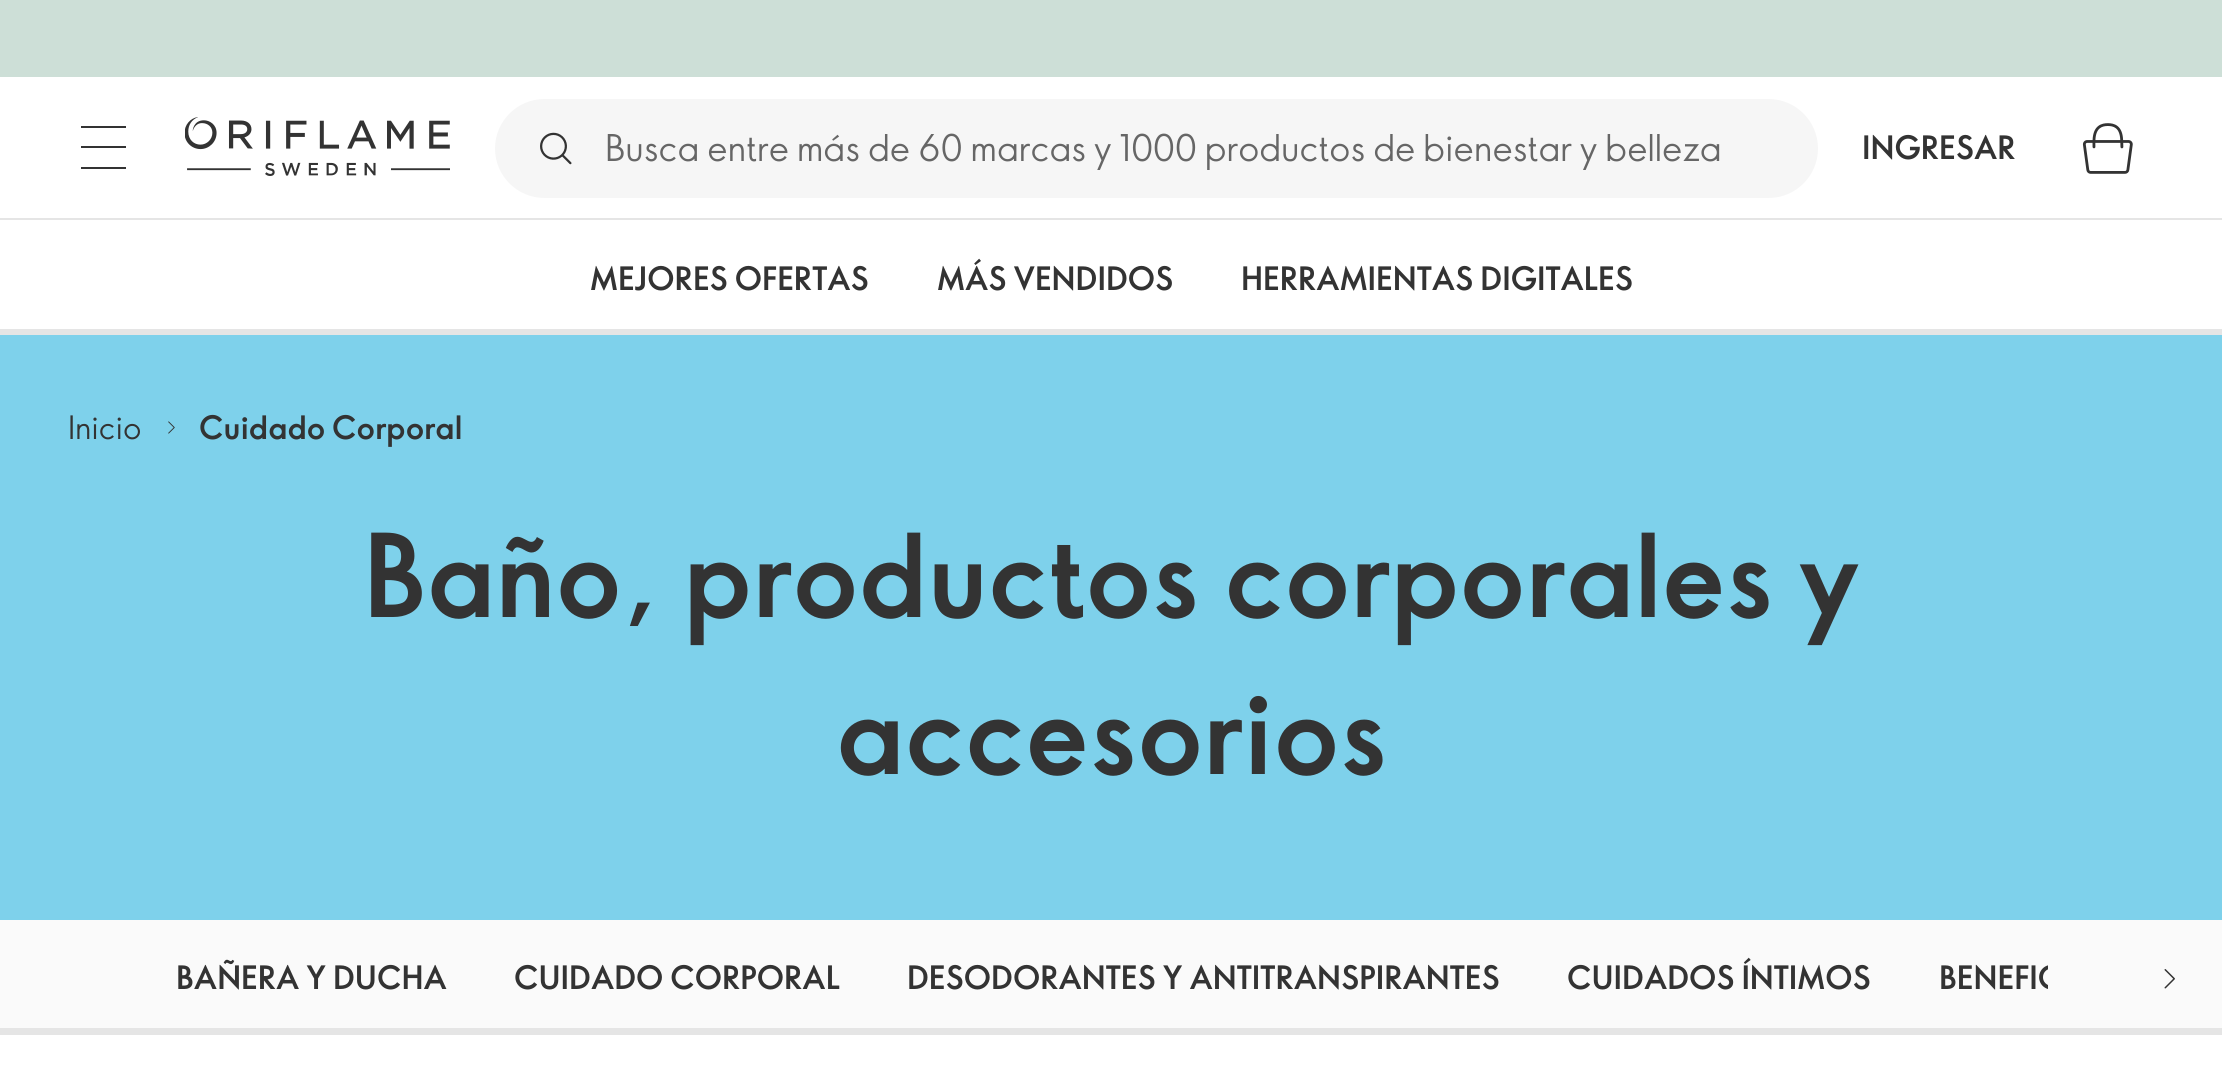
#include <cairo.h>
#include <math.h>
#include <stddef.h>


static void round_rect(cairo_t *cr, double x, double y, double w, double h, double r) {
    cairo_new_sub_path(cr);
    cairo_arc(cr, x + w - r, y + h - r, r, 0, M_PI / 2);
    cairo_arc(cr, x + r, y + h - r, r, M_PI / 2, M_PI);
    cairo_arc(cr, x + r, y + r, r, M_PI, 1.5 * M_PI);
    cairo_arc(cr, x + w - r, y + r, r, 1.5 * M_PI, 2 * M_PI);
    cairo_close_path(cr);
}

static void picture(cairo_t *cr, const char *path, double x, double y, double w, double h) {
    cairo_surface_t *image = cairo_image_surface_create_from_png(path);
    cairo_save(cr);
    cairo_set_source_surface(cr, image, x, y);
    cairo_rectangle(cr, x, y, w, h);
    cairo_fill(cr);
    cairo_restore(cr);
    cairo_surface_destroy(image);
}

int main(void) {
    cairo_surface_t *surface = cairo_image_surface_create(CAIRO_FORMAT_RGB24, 2222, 1091);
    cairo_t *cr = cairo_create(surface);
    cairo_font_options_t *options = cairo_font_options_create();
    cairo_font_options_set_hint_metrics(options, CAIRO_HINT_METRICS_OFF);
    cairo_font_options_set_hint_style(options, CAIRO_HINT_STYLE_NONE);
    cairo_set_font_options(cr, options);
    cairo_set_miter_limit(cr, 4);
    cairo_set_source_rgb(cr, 1, 1, 1);
    cairo_paint(cr);
    cairo_set_source_rgb(cr, 0.898, 0.898, 0.898);
    cairo_rectangle(cr, 0, 218, 2222, 2);
    cairo_fill(cr);
    cairo_set_source_rgb(cr, 0.804, 0.875, 0.843);
    cairo_rectangle(cr, 0, 0, 2222, 77);
    cairo_fill(cr);
    cairo_set_source_rgb(cr, 0.2, 0.2, 0.2);
    cairo_rectangle(cr, 81, 126, 45, 2);
    cairo_fill(cr);
    cairo_rectangle(cr, 81, 146, 45, 2);
    cairo_fill(cr);
    cairo_rectangle(cr, 81, 167, 45, 2);
    cairo_fill(cr);
    picture(cr, "img1.png", 185, 117, 265, 59);
    cairo_set_source_rgb(cr, 0.961, 0.961, 0.961);
    round_rect(cr, 495, 99, 1323, 99, 49.5);
    cairo_fill(cr);
    picture(cr, "img2.png", 540, 132, 32, 33);
    cairo_select_font_face(cr, "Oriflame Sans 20", CAIRO_FONT_SLANT_NORMAL, CAIRO_FONT_WEIGHT_NORMAL);
    cairo_set_font_size(cr, 36);
    cairo_set_source_rgb(cr, 0.4, 0.4, 0.4);
    cairo_move_to(cr, 605, 161);
    cairo_show_text(cr, "Busca entre más de 60 marcas y 1000 productos de bienestar y belleza");
    cairo_select_font_face(cr, "Oriflame Sans 20", CAIRO_FONT_SLANT_NORMAL, CAIRO_FONT_WEIGHT_BOLD);
    cairo_set_font_size(cr, 31.5);
    cairo_set_source_rgb(cr, 0.2, 0.2, 0.2);
    cairo_move_to(cr, 1862, 159);
    cairo_show_text(cr, "INGRESAR");
    picture(cr, "img3.png", 2082, 123, 51, 51);
    cairo_move_to(cr, 590, 290);
    cairo_show_text(cr, "MEJORES OFERTAS");
    cairo_move_to(cr, 937, 290);
    cairo_show_text(cr, "MÁS VENDIDOS");
    cairo_move_to(cr, 1241, 290);
    cairo_show_text(cr, "HERRAMIENTAS DIGITALES");
    cairo_set_source_rgb(cr, 0.898, 0.898, 0.898);
    cairo_rectangle(cr, 0, 329, 2222, 6);
    cairo_fill(cr);
    cairo_set_source_rgb(cr, 0.494, 0.82, 0.918);
    cairo_rectangle(cr, 0, 335, 2222, 585);
    cairo_fill(cr);
    cairo_select_font_face(cr, "Oriflame Sans 20", CAIRO_FONT_SLANT_NORMAL, CAIRO_FONT_WEIGHT_NORMAL);
    cairo_set_source_rgb(cr, 0.2, 0.2, 0.2);
    cairo_move_to(cr, 68, 439);
    cairo_show_text(cr, "Inicio");
    picture(cr, "img4.png", 168, 421, 7, 13);
    cairo_select_font_face(cr, "Oriflame Sans 20", CAIRO_FONT_SLANT_NORMAL, CAIRO_FONT_WEIGHT_BOLD);
    cairo_move_to(cr, 199, 439);
    cairo_show_text(cr, "Cuidado Corporal");
    cairo_set_font_size(cr, 112.5);
    cairo_move_to(cr, 363, 617);
    cairo_show_text(cr, "Baño, productos corporales y");
    cairo_move_to(cr, 836, 774);
    cairo_show_text(cr, "accesorios");
    cairo_set_source_rgb(cr, 0.98, 0.98, 0.98);
    cairo_rectangle(cr, 0, 920, 2222, 108);
    cairo_fill(cr);
    cairo_set_font_size(cr, 31.5);
    cairo_set_source_rgb(cr, 0.2, 0.2, 0.2);
    cairo_move_to(cr, 176, 989);
    cairo_show_text(cr, "BAÑERA Y DUCHA");
    cairo_move_to(cr, 514, 989);
    cairo_show_text(cr, "CUIDADO CORPORAL");
    cairo_move_to(cr, 907, 989);
    cairo_show_text(cr, "DESODORANTES Y ANTITRANSPIRANTES");
    cairo_move_to(cr, 1567, 989);
    cairo_show_text(cr, "CUIDADOS ÍNTIMOS");
    cairo_save(cr);
    cairo_rectangle(cr, 1940, 920, 108, 115);
    cairo_clip(cr);
    cairo_move_to(cr, 1939, 989);
    cairo_show_text(cr, "BENEFIC");
    cairo_restore(cr);
    picture(cr, "img5.png", 2164, 969, 11, 20);
    cairo_set_source_rgb(cr, 0.898, 0.898, 0.898);
    cairo_rectangle(cr, 0, 1028, 2222, 7);
    cairo_fill(cr);
    cairo_surface_write_to_png(surface, "page.png");
    cairo_font_options_destroy(options);
    cairo_destroy(cr);
    cairo_surface_destroy(surface);
    return 0;
}
